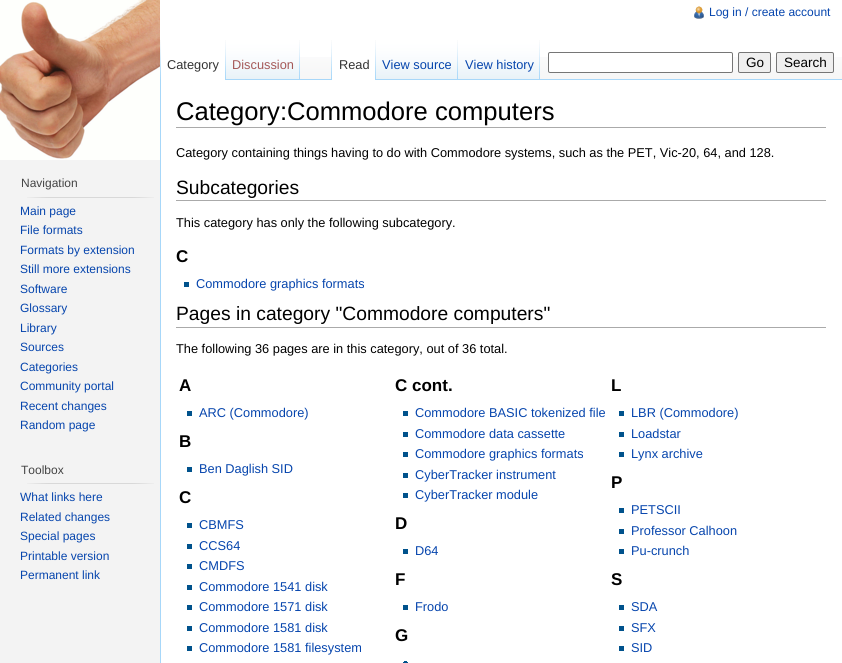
#include <cairo.h>
#include <math.h>
#include <stddef.h>


static void round_rect(cairo_t *cr, double x, double y, double w, double h, double r) {
    cairo_new_sub_path(cr);
    cairo_arc(cr, x + w - r, y + h - r, r, 0, M_PI / 2);
    cairo_arc(cr, x + r, y + h - r, r, M_PI / 2, M_PI);
    cairo_arc(cr, x + r, y + r, r, M_PI, 1.5 * M_PI);
    cairo_arc(cr, x + w - r, y + r, r, 1.5 * M_PI, 2 * M_PI);
    cairo_close_path(cr);
}

static void picture(cairo_t *cr, const char *path, double x, double y, double w, double h) {
    cairo_surface_t *image = cairo_image_surface_create_from_png(path);
    cairo_save(cr);
    cairo_set_source_surface(cr, image, x, y);
    cairo_rectangle(cr, x, y, w, h);
    cairo_fill(cr);
    cairo_restore(cr);
    cairo_surface_destroy(image);
}

int main(void) {
    cairo_surface_t *surface = cairo_image_surface_create(CAIRO_FORMAT_RGB24, 842, 663);
    cairo_t *cr = cairo_create(surface);
    cairo_font_options_t *options = cairo_font_options_create();
    cairo_font_options_set_hint_metrics(options, CAIRO_HINT_METRICS_OFF);
    cairo_font_options_set_hint_style(options, CAIRO_HINT_STYLE_NONE);
    cairo_set_font_options(cr, options);
    cairo_set_miter_limit(cr, 4);
    cairo_set_source_rgb(cr, 0.953, 0.953, 0.953);
    cairo_paint(cr);
    cairo_set_source_rgb(cr, 1, 1, 1);
    cairo_rectangle(cr, 160, 0, 682, 57);
    cairo_fill(cr);
    picture(cr, "img1.png", 300, 57, 542, 22);
    picture(cr, "img2.png", 694, 6, 10, 13);
    cairo_select_font_face(cr, "Liberation Sans", CAIRO_FONT_SLANT_NORMAL, CAIRO_FONT_WEIGHT_NORMAL);
    cairo_set_font_size(cr, 12);
    cairo_set_source_rgb(cr, 0.024, 0.271, 0.678);
    cairo_move_to(cr, 709, 16);
    cairo_show_text(cr, "Log in / create account");
    picture(cr, "img3.png", 160, 40, 1, 39);
    cairo_set_source_rgb(cr, 0.655, 0.843, 0.976);
    cairo_rectangle(cr, 160, 79, 682, 1);
    cairo_fill(cr);
    cairo_set_source_rgb(cr, 1, 1, 1);
    cairo_rectangle(cr, 161, 57, 64, 23);
    cairo_fill(cr);
    picture(cr, "img4.png", 225, 40, 1, 40);
    cairo_set_font_size(cr, 12.8);
    cairo_set_source_rgb(cr, 0.2, 0.2, 0.2);
    cairo_move_to(cr, 167, 69);
    cairo_show_text(cr, "Category");
    picture(cr, "img5.png", 226, 40, 74, 40);
    picture(cr, "img6.png", 299, 40, 1, 39);
    cairo_set_source_rgb(cr, 0.647, 0.345, 0.345);
    cairo_move_to(cr, 232, 69);
    cairo_show_text(cr, "Discussion");
    picture(cr, "img3.png", 331, 40, 1, 39);
    cairo_set_source_rgb(cr, 1, 1, 1);
    cairo_rectangle(cr, 332, 57, 43, 23);
    cairo_fill(cr);
    picture(cr, "img4.png", 375, 40, 1, 40);
    cairo_set_source_rgb(cr, 0.2, 0.2, 0.2);
    cairo_move_to(cr, 339, 69);
    cairo_show_text(cr, "Read");
    picture(cr, "img7.png", 376, 40, 82, 40);
    picture(cr, "img6.png", 457, 40, 1, 39);
    cairo_set_source_rgb(cr, 0.024, 0.271, 0.678);
    cairo_move_to(cr, 382, 69);
    cairo_show_text(cr, "View source");
    picture(cr, "img7.png", 458, 40, 82, 40);
    picture(cr, "img6.png", 539, 40, 1, 39);
    cairo_move_to(cr, 465, 69);
    cairo_show_text(cr, "View history");
    cairo_set_source_rgb(cr, 1, 1, 1);
    round_rect(cr, 548.5, 52.5, 184, 20, 1.5);
    cairo_fill_preserve(cr);
    cairo_set_source_rgb(cr, 0.463, 0.463, 0.463);
    cairo_set_line_width(cr, 1);
    cairo_stroke(cr);
    cairo_set_source_rgb(cr, 0.937, 0.937, 0.937);
    round_rect(cr, 738.5, 52.5, 32, 20, 1.5);
    cairo_fill_preserve(cr);
    cairo_set_source_rgb(cr, 0.463, 0.463, 0.463);
    cairo_stroke(cr);
    cairo_set_font_size(cr, 13.5);
    cairo_set_source_rgb(cr, 0, 0, 0);
    cairo_move_to(cr, 746, 67);
    cairo_show_text(cr, "Go");
    cairo_set_source_rgb(cr, 0.937, 0.937, 0.937);
    round_rect(cr, 776.5, 52.5, 57, 20, 1.5);
    cairo_fill_preserve(cr);
    cairo_set_source_rgb(cr, 0.463, 0.463, 0.463);
    cairo_stroke(cr);
    cairo_set_source_rgb(cr, 0, 0, 0);
    cairo_move_to(cr, 784, 67);
    cairo_show_text(cr, "Search");
    picture(cr, "img8.png", 0, 0, 160, 160);
    cairo_set_font_size(cr, 12);
    cairo_set_source_rgb(cr, 0.267, 0.267, 0.267);
    cairo_move_to(cr, 21, 187);
    cairo_show_text(cr, "Navigation");
    picture(cr, "img9.png", 27, 197, 127, 1);
    cairo_set_source_rgb(cr, 0.024, 0.271, 0.678);
    cairo_move_to(cr, 20, 215);
    cairo_show_text(cr, "Main page");
    cairo_move_to(cr, 20, 234);
    cairo_show_text(cr, "File formats");
    cairo_move_to(cr, 20, 254);
    cairo_show_text(cr, "Formats by extension");
    cairo_move_to(cr, 20, 273);
    cairo_show_text(cr, "Still more extensions");
    cairo_move_to(cr, 20, 293);
    cairo_show_text(cr, "Software");
    cairo_move_to(cr, 20, 312);
    cairo_show_text(cr, "Glossary");
    cairo_move_to(cr, 20, 332);
    cairo_show_text(cr, "Library");
    cairo_move_to(cr, 20, 351);
    cairo_show_text(cr, "Sources");
    cairo_move_to(cr, 20, 371);
    cairo_show_text(cr, "Categories");
    cairo_move_to(cr, 20, 390);
    cairo_show_text(cr, "Community portal");
    cairo_move_to(cr, 20, 410);
    cairo_show_text(cr, "Recent changes");
    cairo_move_to(cr, 20, 429);
    cairo_show_text(cr, "Random page");
    cairo_set_source_rgb(cr, 0.267, 0.267, 0.267);
    cairo_move_to(cr, 21, 474);
    cairo_show_text(cr, "Toolbox");
    picture(cr, "img9.png", 27, 483, 127, 1);
    cairo_set_source_rgb(cr, 0.024, 0.271, 0.678);
    cairo_move_to(cr, 20, 501);
    cairo_show_text(cr, "What links here");
    cairo_move_to(cr, 20, 521);
    cairo_show_text(cr, "Related changes");
    cairo_move_to(cr, 20, 540);
    cairo_show_text(cr, "Special pages");
    cairo_move_to(cr, 20, 560);
    cairo_show_text(cr, "Printable version");
    cairo_move_to(cr, 20, 579);
    cairo_show_text(cr, "Permanent link");
    cairo_set_source_rgb(cr, 1, 1, 1);
    cairo_rectangle(cr, 161, 80, 681, 583);
    cairo_fill(cr);
    cairo_set_source_rgb(cr, 0.655, 0.843, 0.976);
    cairo_rectangle(cr, 160, 80, 1, 583);
    cairo_fill(cr);
    cairo_set_source_rgb(cr, 0.667, 0.667, 0.667);
    cairo_rectangle(cr, 176, 127, 650, 1);
    cairo_fill(cr);
    cairo_set_font_size(cr, 25.6);
    cairo_set_source_rgb(cr, 0, 0, 0);
    cairo_move_to(cr, 176, 120);
    cairo_show_text(cr, "Category:Commodore computers");
    cairo_set_font_size(cr, 12.8);
    cairo_move_to(cr, 176, 157);
    cairo_show_text(cr, "Category containing things having to do with Commodore systems, such as the PET, Vic-20, 64, and 128.");
    cairo_set_source_rgb(cr, 0.667, 0.667, 0.667);
    cairo_rectangle(cr, 176, 200, 650, 1);
    cairo_fill(cr);
    cairo_set_font_size(cr, 19.25);
    cairo_set_source_rgb(cr, 0, 0, 0);
    cairo_move_to(cr, 176, 194);
    cairo_show_text(cr, "Subcategories");
    cairo_set_font_size(cr, 12.8);
    cairo_move_to(cr, 176, 227);
    cairo_show_text(cr, "This category has only the following subcategory.");
    cairo_select_font_face(cr, "Liberation Sans", CAIRO_FONT_SLANT_NORMAL, CAIRO_FONT_WEIGHT_BOLD);
    cairo_set_font_size(cr, 17);
    cairo_move_to(cr, 176, 262);
    cairo_show_text(cr, "C");
    cairo_set_source_rgb(cr, 0, 0.322, 0.549);
    cairo_rectangle(cr, 184, 282, 5, 5);
    cairo_fill(cr);
    cairo_select_font_face(cr, "Liberation Sans", CAIRO_FONT_SLANT_NORMAL, CAIRO_FONT_WEIGHT_NORMAL);
    cairo_set_font_size(cr, 12.8);
    cairo_set_source_rgb(cr, 0.024, 0.271, 0.678);
    cairo_move_to(cr, 196, 288);
    cairo_show_text(cr, "Commodore graphics formats");
    cairo_set_source_rgb(cr, 0.667, 0.667, 0.667);
    cairo_rectangle(cr, 176, 327, 650, 1);
    cairo_fill(cr);
    cairo_set_font_size(cr, 19.25);
    cairo_set_source_rgb(cr, 0, 0, 0);
    cairo_move_to(cr, 176, 320);
    cairo_show_text(cr, "Pages in category \"Commodore computers\"");
    cairo_set_font_size(cr, 12.8);
    cairo_move_to(cr, 176, 353);
    cairo_show_text(cr, "The following 36 pages are in this category, out of 36 total.");
    cairo_select_font_face(cr, "Liberation Sans", CAIRO_FONT_SLANT_NORMAL, CAIRO_FONT_WEIGHT_BOLD);
    cairo_set_font_size(cr, 17);
    cairo_move_to(cr, 179, 391);
    cairo_show_text(cr, "A");
    cairo_set_source_rgb(cr, 0, 0.322, 0.549);
    cairo_rectangle(cr, 187, 411, 5, 5);
    cairo_fill(cr);
    cairo_select_font_face(cr, "Liberation Sans", CAIRO_FONT_SLANT_NORMAL, CAIRO_FONT_WEIGHT_NORMAL);
    cairo_set_font_size(cr, 12.8);
    cairo_set_source_rgb(cr, 0.024, 0.271, 0.678);
    cairo_move_to(cr, 199, 417);
    cairo_show_text(cr, "ARC (Commodore)");
    cairo_select_font_face(cr, "Liberation Sans", CAIRO_FONT_SLANT_NORMAL, CAIRO_FONT_WEIGHT_BOLD);
    cairo_set_font_size(cr, 17);
    cairo_set_source_rgb(cr, 0, 0, 0);
    cairo_move_to(cr, 179, 447);
    cairo_show_text(cr, "B");
    cairo_set_source_rgb(cr, 0, 0.322, 0.549);
    cairo_rectangle(cr, 187, 467, 5, 5);
    cairo_fill(cr);
    cairo_select_font_face(cr, "Liberation Sans", CAIRO_FONT_SLANT_NORMAL, CAIRO_FONT_WEIGHT_NORMAL);
    cairo_set_font_size(cr, 12.8);
    cairo_set_source_rgb(cr, 0.024, 0.271, 0.678);
    cairo_move_to(cr, 199, 473);
    cairo_show_text(cr, "Ben Daglish SID");
    cairo_select_font_face(cr, "Liberation Sans", CAIRO_FONT_SLANT_NORMAL, CAIRO_FONT_WEIGHT_BOLD);
    cairo_set_font_size(cr, 17);
    cairo_set_source_rgb(cr, 0, 0, 0);
    cairo_move_to(cr, 179, 503);
    cairo_show_text(cr, "C");
    cairo_set_source_rgb(cr, 0, 0.322, 0.549);
    cairo_rectangle(cr, 187, 523, 5, 5);
    cairo_fill(cr);
    cairo_select_font_face(cr, "Liberation Sans", CAIRO_FONT_SLANT_NORMAL, CAIRO_FONT_WEIGHT_NORMAL);
    cairo_set_font_size(cr, 12.8);
    cairo_set_source_rgb(cr, 0.024, 0.271, 0.678);
    cairo_move_to(cr, 199, 529);
    cairo_show_text(cr, "CBMFS");
    cairo_set_source_rgb(cr, 0, 0.322, 0.549);
    cairo_rectangle(cr, 187, 544, 5, 5);
    cairo_fill(cr);
    cairo_set_source_rgb(cr, 0.024, 0.271, 0.678);
    cairo_move_to(cr, 199, 550);
    cairo_show_text(cr, "CCS64");
    cairo_set_source_rgb(cr, 0, 0.322, 0.549);
    cairo_rectangle(cr, 187, 564, 5, 5);
    cairo_fill(cr);
    cairo_set_source_rgb(cr, 0.024, 0.271, 0.678);
    cairo_move_to(cr, 199, 570);
    cairo_show_text(cr, "CMDFS");
    cairo_set_source_rgb(cr, 0, 0.322, 0.549);
    cairo_rectangle(cr, 187, 585, 5, 5);
    cairo_fill(cr);
    cairo_set_source_rgb(cr, 0.024, 0.271, 0.678);
    cairo_move_to(cr, 199, 591);
    cairo_show_text(cr, "Commodore 1541 disk");
    cairo_set_source_rgb(cr, 0, 0.322, 0.549);
    cairo_rectangle(cr, 187, 605, 5, 5);
    cairo_fill(cr);
    cairo_set_source_rgb(cr, 0.024, 0.271, 0.678);
    cairo_move_to(cr, 199, 611);
    cairo_show_text(cr, "Commodore 1571 disk");
    cairo_set_source_rgb(cr, 0, 0.322, 0.549);
    cairo_rectangle(cr, 187, 626, 5, 5);
    cairo_fill(cr);
    cairo_set_source_rgb(cr, 0.024, 0.271, 0.678);
    cairo_move_to(cr, 199, 632);
    cairo_show_text(cr, "Commodore 1581 disk");
    cairo_set_source_rgb(cr, 0, 0.322, 0.549);
    cairo_rectangle(cr, 187, 646, 5, 5);
    cairo_fill(cr);
    cairo_set_source_rgb(cr, 0.024, 0.271, 0.678);
    cairo_move_to(cr, 199, 652);
    cairo_show_text(cr, "Commodore 1581 filesystem");
    cairo_select_font_face(cr, "Liberation Sans", CAIRO_FONT_SLANT_NORMAL, CAIRO_FONT_WEIGHT_BOLD);
    cairo_set_font_size(cr, 17);
    cairo_set_source_rgb(cr, 0, 0, 0);
    cairo_move_to(cr, 395, 391);
    cairo_show_text(cr, "C cont.");
    cairo_set_source_rgb(cr, 0, 0.322, 0.549);
    cairo_rectangle(cr, 403, 411, 5, 5);
    cairo_fill(cr);
    cairo_select_font_face(cr, "Liberation Sans", CAIRO_FONT_SLANT_NORMAL, CAIRO_FONT_WEIGHT_NORMAL);
    cairo_set_font_size(cr, 12.8);
    cairo_set_source_rgb(cr, 0.024, 0.271, 0.678);
    cairo_move_to(cr, 415, 417);
    cairo_show_text(cr, "Commodore BASIC tokenized file");
    cairo_set_source_rgb(cr, 0, 0.322, 0.549);
    cairo_rectangle(cr, 403, 432, 5, 5);
    cairo_fill(cr);
    cairo_set_source_rgb(cr, 0.024, 0.271, 0.678);
    cairo_move_to(cr, 415, 438);
    cairo_show_text(cr, "Commodore data cassette");
    cairo_set_source_rgb(cr, 0, 0.322, 0.549);
    cairo_rectangle(cr, 403, 452, 5, 5);
    cairo_fill(cr);
    cairo_set_source_rgb(cr, 0.024, 0.271, 0.678);
    cairo_move_to(cr, 415, 458);
    cairo_show_text(cr, "Commodore graphics formats");
    cairo_set_source_rgb(cr, 0, 0.322, 0.549);
    cairo_rectangle(cr, 403, 473, 5, 5);
    cairo_fill(cr);
    cairo_set_source_rgb(cr, 0.024, 0.271, 0.678);
    cairo_move_to(cr, 415, 479);
    cairo_show_text(cr, "CyberTracker instrument");
    cairo_set_source_rgb(cr, 0, 0.322, 0.549);
    cairo_rectangle(cr, 403, 493, 5, 5);
    cairo_fill(cr);
    cairo_set_source_rgb(cr, 0.024, 0.271, 0.678);
    cairo_move_to(cr, 415, 499);
    cairo_show_text(cr, "CyberTracker module");
    cairo_select_font_face(cr, "Liberation Sans", CAIRO_FONT_SLANT_NORMAL, CAIRO_FONT_WEIGHT_BOLD);
    cairo_set_font_size(cr, 17);
    cairo_set_source_rgb(cr, 0, 0, 0);
    cairo_move_to(cr, 395, 529);
    cairo_show_text(cr, "D");
    cairo_set_source_rgb(cr, 0, 0.322, 0.549);
    cairo_rectangle(cr, 403, 549, 5, 5);
    cairo_fill(cr);
    cairo_select_font_face(cr, "Liberation Sans", CAIRO_FONT_SLANT_NORMAL, CAIRO_FONT_WEIGHT_NORMAL);
    cairo_set_font_size(cr, 12.8);
    cairo_set_source_rgb(cr, 0.024, 0.271, 0.678);
    cairo_move_to(cr, 415, 555);
    cairo_show_text(cr, "D64");
    cairo_select_font_face(cr, "Liberation Sans", CAIRO_FONT_SLANT_NORMAL, CAIRO_FONT_WEIGHT_BOLD);
    cairo_set_font_size(cr, 17);
    cairo_set_source_rgb(cr, 0, 0, 0);
    cairo_move_to(cr, 395, 585);
    cairo_show_text(cr, "F");
    cairo_set_source_rgb(cr, 0, 0.322, 0.549);
    cairo_rectangle(cr, 403, 605, 5, 5);
    cairo_fill(cr);
    cairo_select_font_face(cr, "Liberation Sans", CAIRO_FONT_SLANT_NORMAL, CAIRO_FONT_WEIGHT_NORMAL);
    cairo_set_font_size(cr, 12.8);
    cairo_set_source_rgb(cr, 0.024, 0.271, 0.678);
    cairo_move_to(cr, 415, 611);
    cairo_show_text(cr, "Frodo");
    cairo_select_font_face(cr, "Liberation Sans", CAIRO_FONT_SLANT_NORMAL, CAIRO_FONT_WEIGHT_BOLD);
    cairo_set_font_size(cr, 17);
    cairo_set_source_rgb(cr, 0, 0, 0);
    cairo_move_to(cr, 395, 641);
    cairo_show_text(cr, "G");
    picture(cr, "img10.png", 403, 661, 5, 2);
    cairo_move_to(cr, 611, 391);
    cairo_show_text(cr, "L");
    cairo_set_source_rgb(cr, 0, 0.322, 0.549);
    cairo_rectangle(cr, 619, 411, 5, 5);
    cairo_fill(cr);
    cairo_select_font_face(cr, "Liberation Sans", CAIRO_FONT_SLANT_NORMAL, CAIRO_FONT_WEIGHT_NORMAL);
    cairo_set_font_size(cr, 12.8);
    cairo_set_source_rgb(cr, 0.024, 0.271, 0.678);
    cairo_move_to(cr, 631, 417);
    cairo_show_text(cr, "LBR (Commodore)");
    cairo_set_source_rgb(cr, 0, 0.322, 0.549);
    cairo_rectangle(cr, 619, 432, 5, 5);
    cairo_fill(cr);
    cairo_set_source_rgb(cr, 0.024, 0.271, 0.678);
    cairo_move_to(cr, 631, 438);
    cairo_show_text(cr, "Loadstar");
    cairo_set_source_rgb(cr, 0, 0.322, 0.549);
    cairo_rectangle(cr, 619, 452, 5, 5);
    cairo_fill(cr);
    cairo_set_source_rgb(cr, 0.024, 0.271, 0.678);
    cairo_move_to(cr, 631, 458);
    cairo_show_text(cr, "Lynx archive");
    cairo_select_font_face(cr, "Liberation Sans", CAIRO_FONT_SLANT_NORMAL, CAIRO_FONT_WEIGHT_BOLD);
    cairo_set_font_size(cr, 17);
    cairo_set_source_rgb(cr, 0, 0, 0);
    cairo_move_to(cr, 611, 488);
    cairo_show_text(cr, "P");
    cairo_set_source_rgb(cr, 0, 0.322, 0.549);
    cairo_rectangle(cr, 619, 508, 5, 5);
    cairo_fill(cr);
    cairo_select_font_face(cr, "Liberation Sans", CAIRO_FONT_SLANT_NORMAL, CAIRO_FONT_WEIGHT_NORMAL);
    cairo_set_font_size(cr, 12.8);
    cairo_set_source_rgb(cr, 0.024, 0.271, 0.678);
    cairo_move_to(cr, 631, 514);
    cairo_show_text(cr, "PETSCII");
    cairo_set_source_rgb(cr, 0, 0.322, 0.549);
    cairo_rectangle(cr, 619, 529, 5, 5);
    cairo_fill(cr);
    cairo_set_source_rgb(cr, 0.024, 0.271, 0.678);
    cairo_move_to(cr, 631, 535);
    cairo_show_text(cr, "Professor Calhoon");
    cairo_set_source_rgb(cr, 0, 0.322, 0.549);
    cairo_rectangle(cr, 619, 549, 5, 5);
    cairo_fill(cr);
    cairo_set_source_rgb(cr, 0.024, 0.271, 0.678);
    cairo_move_to(cr, 631, 555);
    cairo_show_text(cr, "Pu-crunch");
    cairo_select_font_face(cr, "Liberation Sans", CAIRO_FONT_SLANT_NORMAL, CAIRO_FONT_WEIGHT_BOLD);
    cairo_set_font_size(cr, 17);
    cairo_set_source_rgb(cr, 0, 0, 0);
    cairo_move_to(cr, 611, 585);
    cairo_show_text(cr, "S");
    cairo_set_source_rgb(cr, 0, 0.322, 0.549);
    cairo_rectangle(cr, 619, 605, 5, 5);
    cairo_fill(cr);
    cairo_select_font_face(cr, "Liberation Sans", CAIRO_FONT_SLANT_NORMAL, CAIRO_FONT_WEIGHT_NORMAL);
    cairo_set_font_size(cr, 12.8);
    cairo_set_source_rgb(cr, 0.024, 0.271, 0.678);
    cairo_move_to(cr, 631, 611);
    cairo_show_text(cr, "SDA");
    cairo_set_source_rgb(cr, 0, 0.322, 0.549);
    cairo_rectangle(cr, 619, 626, 5, 5);
    cairo_fill(cr);
    cairo_set_source_rgb(cr, 0.024, 0.271, 0.678);
    cairo_move_to(cr, 631, 632);
    cairo_show_text(cr, "SFX");
    cairo_set_source_rgb(cr, 0, 0.322, 0.549);
    cairo_rectangle(cr, 619, 646, 5, 5);
    cairo_fill(cr);
    cairo_set_source_rgb(cr, 0.024, 0.271, 0.678);
    cairo_move_to(cr, 631, 652);
    cairo_show_text(cr, "SID");
    cairo_surface_write_to_png(surface, "page.png");
    cairo_font_options_destroy(options);
    cairo_destroy(cr);
    cairo_surface_destroy(surface);
    return 0;
}
